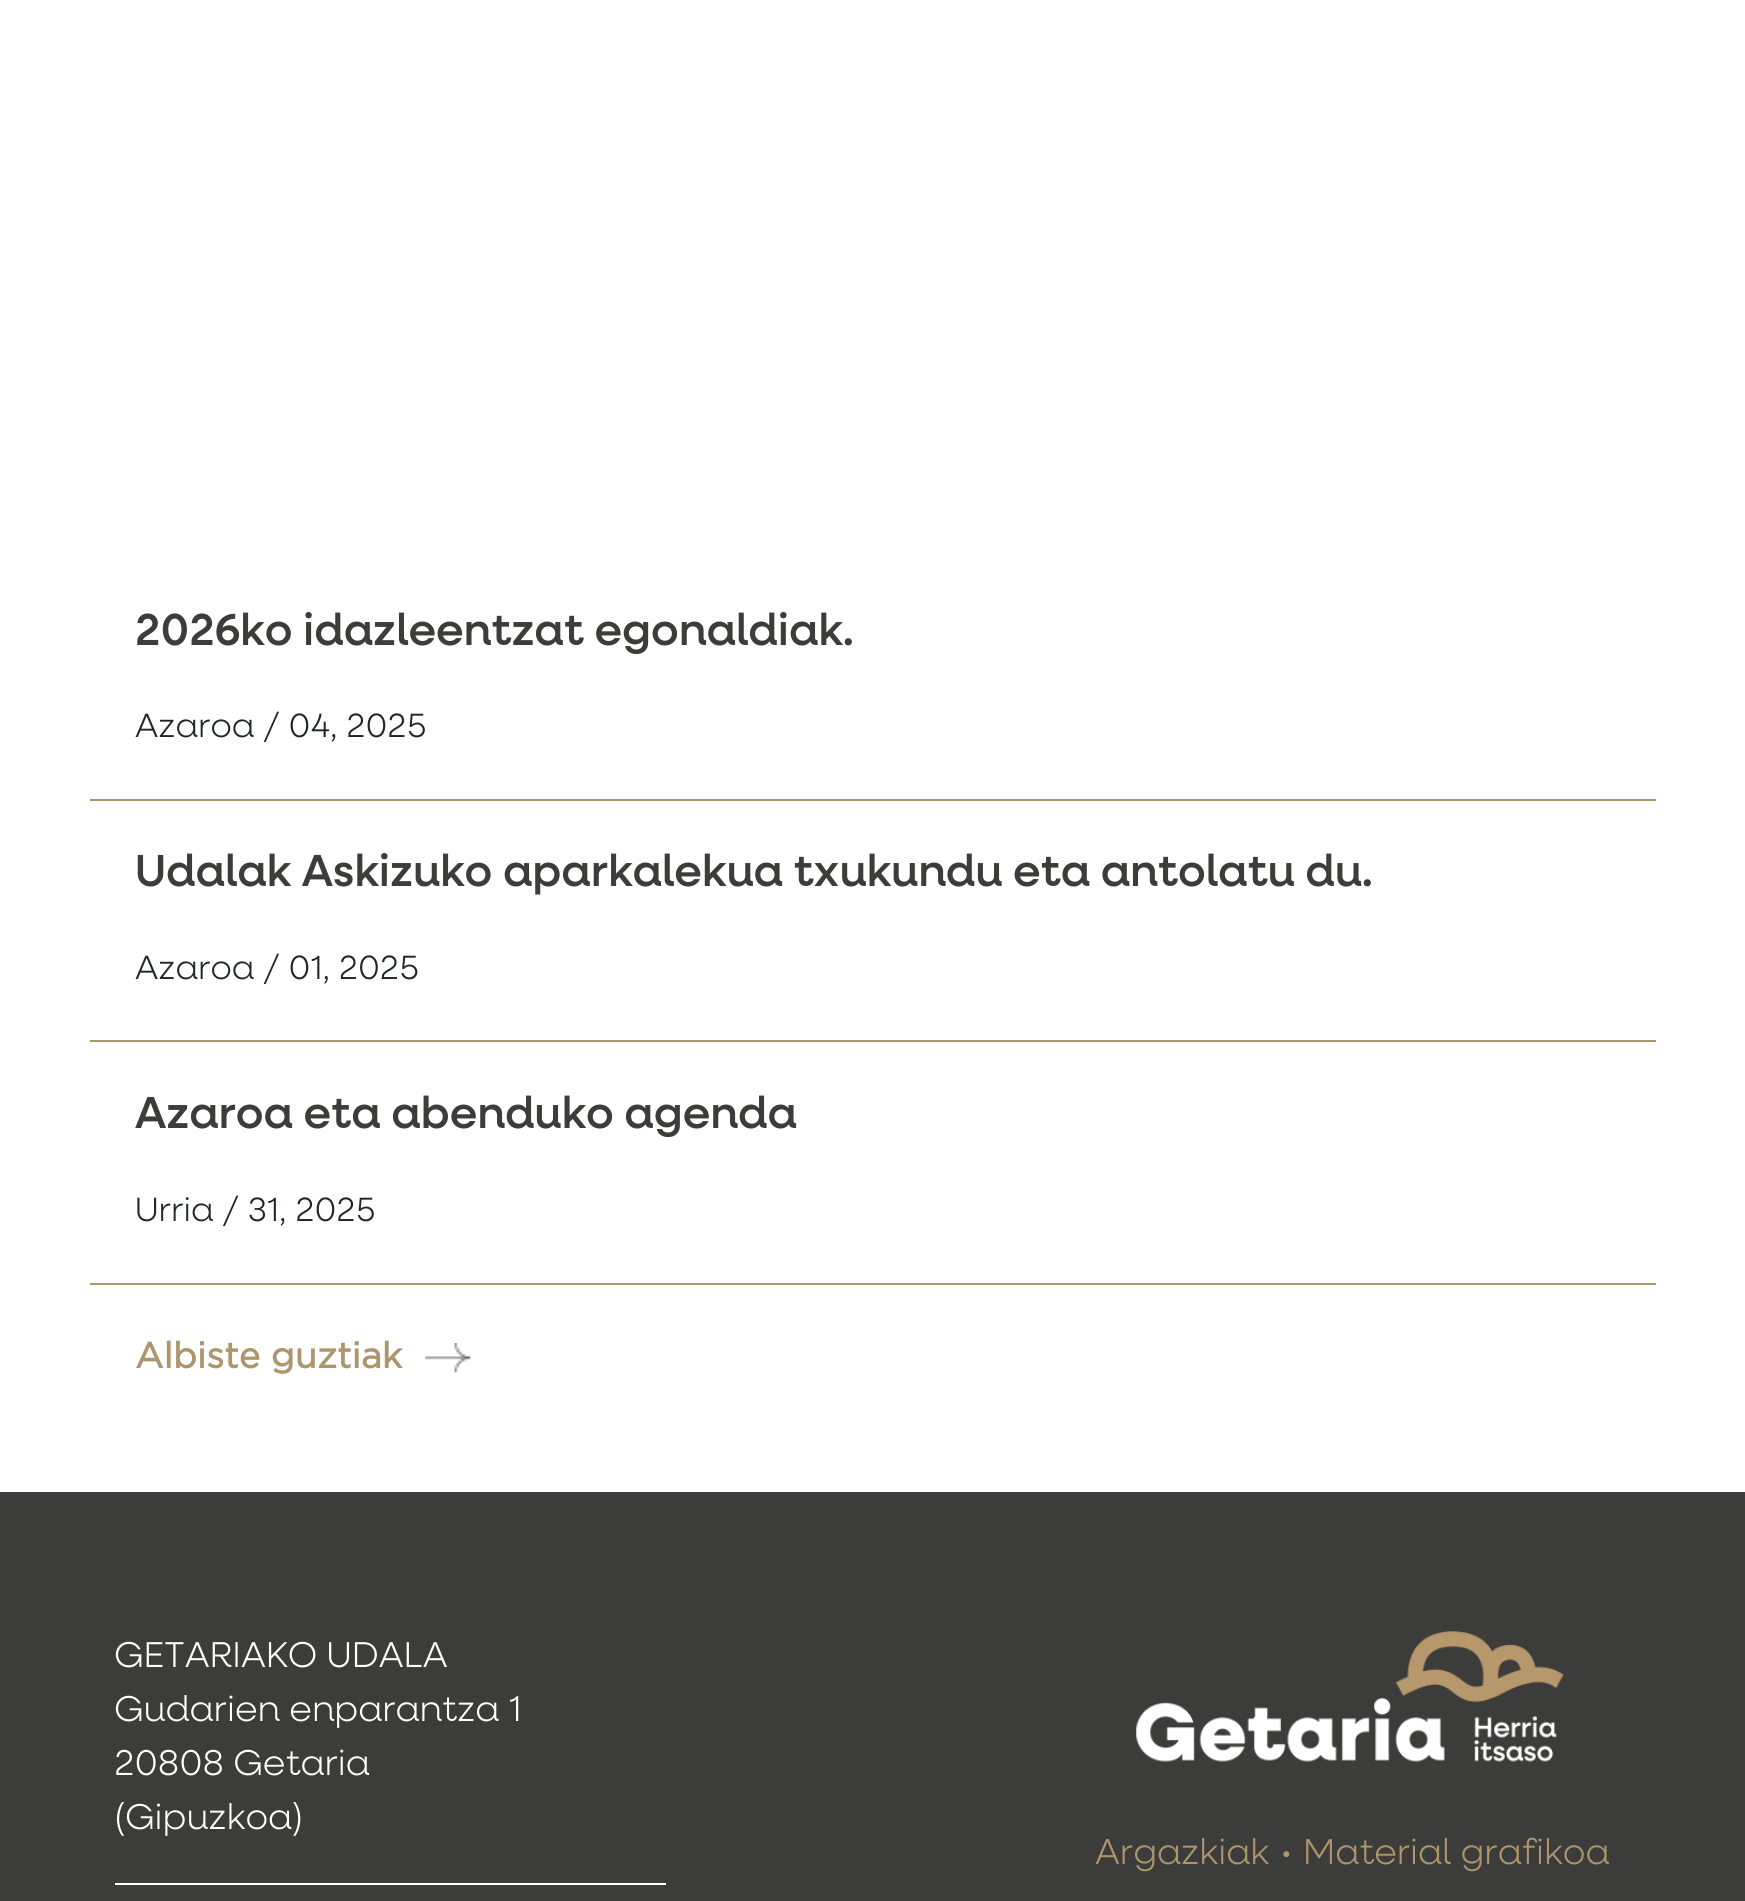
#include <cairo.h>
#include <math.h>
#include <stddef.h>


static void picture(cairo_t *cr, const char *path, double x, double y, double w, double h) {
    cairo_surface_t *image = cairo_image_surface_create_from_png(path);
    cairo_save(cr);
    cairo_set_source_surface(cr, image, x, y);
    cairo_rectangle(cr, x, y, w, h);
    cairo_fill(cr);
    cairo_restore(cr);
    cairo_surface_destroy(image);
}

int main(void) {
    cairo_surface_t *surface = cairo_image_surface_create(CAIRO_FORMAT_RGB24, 1745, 1901);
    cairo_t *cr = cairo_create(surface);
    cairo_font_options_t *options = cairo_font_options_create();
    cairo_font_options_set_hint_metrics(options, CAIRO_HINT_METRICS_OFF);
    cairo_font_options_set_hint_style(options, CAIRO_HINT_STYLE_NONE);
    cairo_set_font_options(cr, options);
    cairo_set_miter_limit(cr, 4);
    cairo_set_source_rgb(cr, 1, 1, 1);
    cairo_paint(cr);
    cairo_set_source_rgb(cr, 0.678, 0.588, 0.431);
    cairo_rectangle(cr, 90, 799, 1566, 2);
    cairo_fill(cr);
    cairo_select_font_face(cr, "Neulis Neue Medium", CAIRO_FONT_SLANT_NORMAL, CAIRO_FONT_WEIGHT_NORMAL);
    cairo_set_font_size(cr, 45);
    cairo_set_source_rgb(cr, 0.235, 0.235, 0.231);
    cairo_move_to(cr, 135, 645);
    cairo_show_text(cr, "2026ko idazleentzat egonaldiak.");
    cairo_select_font_face(cr, "Neulis Neue Light", CAIRO_FONT_SLANT_NORMAL, CAIRO_FONT_WEIGHT_NORMAL);
    cairo_set_font_size(cr, 33.75);
    cairo_set_source_rgb(cr, 0.129, 0.145, 0.161);
    cairo_move_to(cr, 135, 737);
    cairo_show_text(cr, "Azaroa / 04, 2025");
    cairo_set_source_rgb(cr, 0.678, 0.588, 0.431);
    cairo_rectangle(cr, 90, 1040, 1566, 2);
    cairo_fill(cr);
    cairo_select_font_face(cr, "Neulis Neue Medium", CAIRO_FONT_SLANT_NORMAL, CAIRO_FONT_WEIGHT_NORMAL);
    cairo_set_font_size(cr, 45);
    cairo_set_source_rgb(cr, 0.235, 0.235, 0.231);
    cairo_move_to(cr, 135, 886);
    cairo_show_text(cr, "Udalak Askizuko aparkalekua txukundu eta antolatu du.");
    cairo_select_font_face(cr, "Neulis Neue Light", CAIRO_FONT_SLANT_NORMAL, CAIRO_FONT_WEIGHT_NORMAL);
    cairo_set_font_size(cr, 33.75);
    cairo_set_source_rgb(cr, 0.129, 0.145, 0.161);
    cairo_move_to(cr, 135, 979);
    cairo_show_text(cr, "Azaroa / 01, 2025");
    cairo_set_source_rgb(cr, 0.678, 0.588, 0.431);
    cairo_rectangle(cr, 90, 1283, 1566, 2);
    cairo_fill(cr);
    cairo_select_font_face(cr, "Neulis Neue Medium", CAIRO_FONT_SLANT_NORMAL, CAIRO_FONT_WEIGHT_NORMAL);
    cairo_set_font_size(cr, 45);
    cairo_set_source_rgb(cr, 0.235, 0.235, 0.231);
    cairo_move_to(cr, 135, 1128);
    cairo_show_text(cr, "Azaroa eta abenduko agenda");
    cairo_select_font_face(cr, "Neulis Neue Light", CAIRO_FONT_SLANT_NORMAL, CAIRO_FONT_WEIGHT_NORMAL);
    cairo_set_font_size(cr, 33.75);
    cairo_set_source_rgb(cr, 0.129, 0.145, 0.161);
    cairo_move_to(cr, 135, 1221);
    cairo_show_text(cr, "Urria / 31, 2025");
    cairo_select_font_face(cr, "Gotham", CAIRO_FONT_SLANT_NORMAL, CAIRO_FONT_WEIGHT_BOLD);
    cairo_set_font_size(cr, 36);
    cairo_set_source_rgb(cr, 0.678, 0.588, 0.431);
    cairo_move_to(cr, 135, 1368);
    cairo_show_text(cr, "Albiste guztiak");
    picture(cr, "img1.png", 425, 1343, 46, 30);
    cairo_set_source_rgb(cr, 0.235, 0.235, 0.231);
    cairo_rectangle(cr, 0, 1492, 1745, 409);
    cairo_fill(cr);
    cairo_select_font_face(cr, "Neulis Neue Light", CAIRO_FONT_SLANT_NORMAL, CAIRO_FONT_WEIGHT_NORMAL);
    cairo_set_source_rgb(cr, 1, 1, 1);
    cairo_move_to(cr, 114, 1667);
    cairo_show_text(cr, "GETARIAKO UDALA");
    cairo_move_to(cr, 114, 1721);
    cairo_show_text(cr, "Gudarien enparantza 1");
    cairo_move_to(cr, 114, 1775);
    cairo_show_text(cr, "20808 Getaria");
    cairo_move_to(cr, 114, 1829);
    cairo_show_text(cr, "(Gipuzkoa)");
    cairo_rectangle(cr, 115, 1883, 551, 2);
    cairo_fill(cr);
    picture(cr, "img2.png", 1136, 1631, 428, 131);
    cairo_set_source_rgb(cr, 0.678, 0.588, 0.431);
    cairo_move_to(cr, 1095, 1864);
    cairo_show_text(cr, "Argazkiak");
    cairo_move_to(cr, 1281, 1864);
    cairo_show_text(cr, "•");
    cairo_move_to(cr, 1303, 1864);
    cairo_show_text(cr, "Material grafikoa");
    cairo_surface_write_to_png(surface, "page.png");
    cairo_font_options_destroy(options);
    cairo_destroy(cr);
    cairo_surface_destroy(surface);
    return 0;
}
